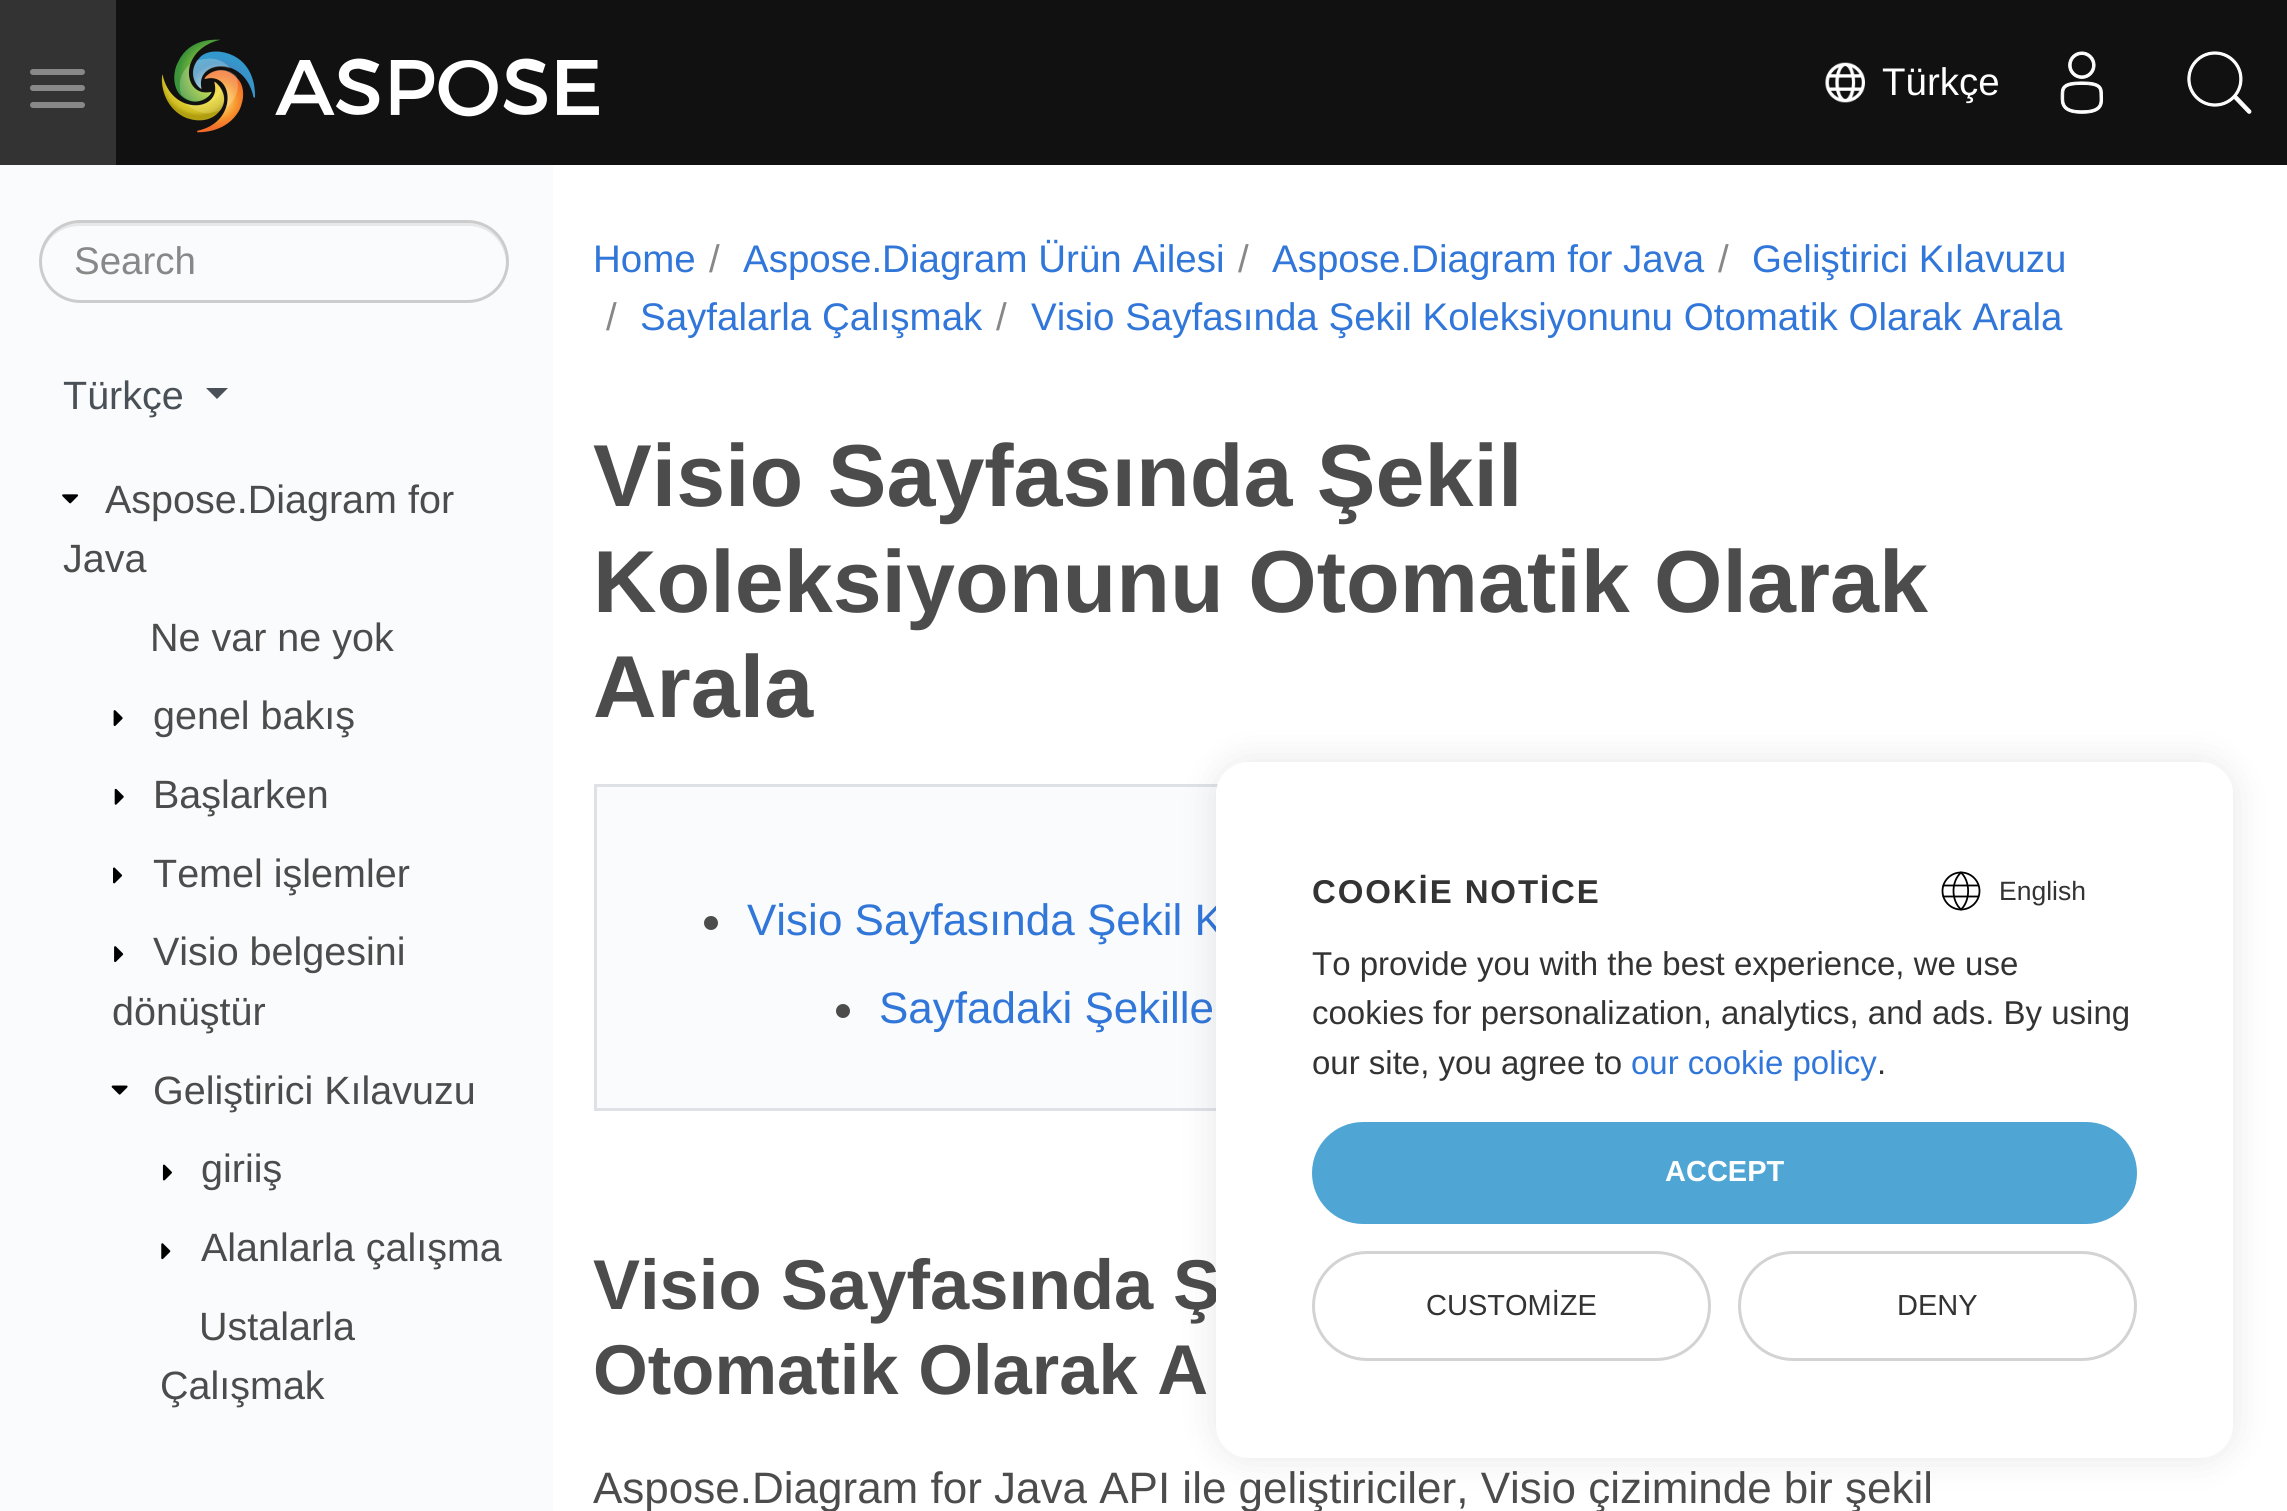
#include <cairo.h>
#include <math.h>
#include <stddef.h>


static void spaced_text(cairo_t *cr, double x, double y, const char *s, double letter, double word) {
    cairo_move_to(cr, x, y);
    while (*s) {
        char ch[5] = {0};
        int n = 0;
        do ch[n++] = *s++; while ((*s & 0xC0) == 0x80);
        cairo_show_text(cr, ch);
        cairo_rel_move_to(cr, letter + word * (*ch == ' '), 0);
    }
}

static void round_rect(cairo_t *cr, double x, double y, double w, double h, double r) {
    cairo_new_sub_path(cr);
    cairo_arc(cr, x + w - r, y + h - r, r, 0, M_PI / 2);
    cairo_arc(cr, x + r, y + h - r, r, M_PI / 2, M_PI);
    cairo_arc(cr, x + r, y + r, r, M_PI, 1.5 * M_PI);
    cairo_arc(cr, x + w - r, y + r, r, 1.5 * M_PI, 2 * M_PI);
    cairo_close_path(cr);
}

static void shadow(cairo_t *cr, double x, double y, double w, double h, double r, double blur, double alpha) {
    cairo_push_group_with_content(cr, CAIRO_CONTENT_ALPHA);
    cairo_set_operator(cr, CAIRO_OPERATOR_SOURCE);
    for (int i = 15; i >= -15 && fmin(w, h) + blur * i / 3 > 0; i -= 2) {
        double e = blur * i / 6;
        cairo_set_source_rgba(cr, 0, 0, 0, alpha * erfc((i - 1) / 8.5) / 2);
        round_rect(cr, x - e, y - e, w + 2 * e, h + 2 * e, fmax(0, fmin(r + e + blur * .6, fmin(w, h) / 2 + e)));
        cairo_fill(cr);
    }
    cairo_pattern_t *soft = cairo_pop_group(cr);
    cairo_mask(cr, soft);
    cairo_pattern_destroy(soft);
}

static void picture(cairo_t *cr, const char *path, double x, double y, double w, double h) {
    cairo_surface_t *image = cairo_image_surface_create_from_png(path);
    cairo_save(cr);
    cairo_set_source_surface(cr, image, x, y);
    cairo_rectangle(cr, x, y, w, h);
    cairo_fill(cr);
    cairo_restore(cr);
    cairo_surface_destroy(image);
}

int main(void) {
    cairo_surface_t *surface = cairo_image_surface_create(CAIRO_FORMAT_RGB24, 2287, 1511);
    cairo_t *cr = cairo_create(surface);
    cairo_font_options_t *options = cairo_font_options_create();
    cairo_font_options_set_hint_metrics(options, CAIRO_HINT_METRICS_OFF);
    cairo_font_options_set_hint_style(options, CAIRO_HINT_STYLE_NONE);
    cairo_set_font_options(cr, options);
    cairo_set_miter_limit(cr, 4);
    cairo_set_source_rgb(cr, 1, 1, 1);
    cairo_paint(cr);
    cairo_set_source_rgb(cr, 0.067, 0.067, 0.067);
    cairo_rectangle(cr, 116, 0, 2171, 165);
    cairo_fill(cr);
    cairo_set_source_rgb(cr, 0.2, 0.2, 0.2);
    cairo_rectangle(cr, 0, 0, 116, 165);
    cairo_fill(cr);
    cairo_set_source_rgb(cr, 0.533, 0.533, 0.533);
    round_rect(cr, 30, 69, 55, 6, 3);
    cairo_fill(cr);
    round_rect(cr, 30, 85, 55, 6, 3);
    cairo_fill(cr);
    round_rect(cr, 30, 102, 55, 6, 3);
    cairo_fill(cr);
    picture(cr, "img1.png", 161, 39, 438, 94);
    picture(cr, "img2.png", 1825, 62, 40, 41);
    cairo_select_font_face(cr, "Liberation Sans", CAIRO_FONT_SLANT_NORMAL, CAIRO_FONT_WEIGHT_NORMAL);
    cairo_set_font_size(cr, 38.5);
    cairo_set_source_rgb(cr, 1, 1, 1);
    cairo_move_to(cr, 1882, 95);
    cairo_show_text(cr, "Türkçe");
    picture(cr, "img3.png", 2060, 51, 44, 63);
    picture(cr, "img4.png", 2187, 51, 65, 63);
    cairo_set_source_rgb(cr, 0.98, 0.984, 0.988);
    cairo_rectangle(cr, 0, 165, 553, 1346);
    cairo_fill(cr);
    cairo_set_source_rgb(cr, 0.906, 0.91, 0.914);
    cairo_new_path(cr);
    cairo_move_to(cr, 80, 226);
    cairo_line_to(cr, 468, 226);
    cairo_curve_to(cr, 489, 226, 505, 242, 506, 263);
    cairo_line_to(cr, 506, 262);
    cairo_curve_to(cr, 506, 240, 489, 223, 468, 223);
    cairo_line_to(cr, 80, 223);
    cairo_curve_to(cr, 58, 223, 41, 240, 41, 262);
    cairo_line_to(cr, 41, 263);
    cairo_curve_to(cr, 42, 242, 58, 226, 80, 226);
    cairo_close_path(cr);
    cairo_fill(cr);
    round_rect(cr, 40.5, 221.5, 467, 80, 40);
    cairo_set_source_rgb(cr, 0.8, 0.8, 0.8);
    cairo_set_line_width(cr, 3);
    cairo_stroke(cr);
    cairo_set_source_rgb(cr, 0.533, 0.533, 0.533);
    cairo_move_to(cr, 74, 274);
    cairo_show_text(cr, "Search");
    cairo_set_font_size(cr, 39.5);
    cairo_set_source_rgb(cr, 0.286, 0.314, 0.341);
    cairo_move_to(cr, 63, 409);
    cairo_show_text(cr, "Türkçe");
    cairo_new_path(cr);
    cairo_move_to(cr, 206, 388);
    cairo_line_to(cr, 228, 388);
    cairo_line_to(cr, 217, 399);
    cairo_close_path(cr);
    cairo_fill(cr);
    picture(cr, "img5.png", 62, 494, 17, 10);
    cairo_set_source_rgb(cr, 0.298, 0.298, 0.298);
    cairo_move_to(cr, 105, 513);
    cairo_show_text(cr, "Aspose.Diagram for");
    cairo_move_to(cr, 63, 572);
    cairo_show_text(cr, "Java");
    cairo_move_to(cr, 150, 651);
    cairo_show_text(cr, "Ne var ne yok");
    picture(cr, "img6.png", 113, 710, 10, 16);
    cairo_move_to(cr, 153, 729);
    cairo_show_text(cr, "genel bakış");
    picture(cr, "img7.png", 114, 788, 10, 17);
    cairo_move_to(cr, 153, 808);
    cairo_show_text(cr, "Başlarken");
    picture(cr, "img8.png", 113, 867, 10, 17);
    cairo_move_to(cr, 153, 887);
    cairo_show_text(cr, "Temel işlemler");
    picture(cr, "img9.png", 114, 946, 10, 17);
    cairo_move_to(cr, 153, 965);
    cairo_show_text(cr, "Visio belgesini");
    cairo_move_to(cr, 112, 1025);
    cairo_show_text(cr, "dönüştür");
    picture(cr, "img10.png", 111, 1085, 17, 10);
    cairo_move_to(cr, 153, 1104);
    cairo_show_text(cr, "Geliştirici Kılavuzu");
    picture(cr, "img11.png", 162, 1164, 10, 17);
    cairo_move_to(cr, 201, 1182);
    cairo_show_text(cr, "giriiş");
    picture(cr, "img12.png", 161, 1243, 10, 17);
    cairo_move_to(cr, 201, 1261);
    cairo_show_text(cr, "Alanlarla çalışma");
    cairo_move_to(cr, 199, 1340);
    cairo_show_text(cr, "Ustalarla");
    cairo_move_to(cr, 160, 1399);
    cairo_show_text(cr, "Çalışmak");
    cairo_set_font_size(cr, 38.5);
    cairo_set_source_rgb(cr, 0.192, 0.463, 0.851);
    cairo_move_to(cr, 593, 272);
    cairo_show_text(cr, "Home");
    cairo_set_source_rgb(cr, 0.533, 0.533, 0.533);
    cairo_move_to(cr, 709, 272);
    cairo_show_text(cr, "/");
    cairo_set_source_rgb(cr, 0.192, 0.463, 0.851);
    cairo_move_to(cr, 743, 272);
    cairo_show_text(cr, "Aspose.Diagram Ürün Ailesi");
    cairo_set_source_rgb(cr, 0.533, 0.533, 0.533);
    cairo_move_to(cr, 1238, 272);
    cairo_show_text(cr, "/");
    cairo_set_source_rgb(cr, 0.192, 0.463, 0.851);
    cairo_move_to(cr, 1272, 272);
    cairo_show_text(cr, "Aspose.Diagram for Java");
    cairo_set_source_rgb(cr, 0.533, 0.533, 0.533);
    cairo_move_to(cr, 1718, 272);
    cairo_show_text(cr, "/");
    cairo_set_source_rgb(cr, 0.192, 0.463, 0.851);
    cairo_move_to(cr, 1752, 272);
    cairo_show_text(cr, "Geliştirici Kılavuzu");
    cairo_set_source_rgb(cr, 0.533, 0.533, 0.533);
    cairo_move_to(cr, 606, 330);
    cairo_show_text(cr, "/");
    cairo_set_source_rgb(cr, 0.192, 0.463, 0.851);
    cairo_move_to(cr, 640, 330);
    cairo_show_text(cr, "Sayfalarla Çalışmak");
    cairo_set_source_rgb(cr, 0.533, 0.533, 0.533);
    cairo_move_to(cr, 996, 330);
    cairo_show_text(cr, "/");
    cairo_set_source_rgb(cr, 0.192, 0.463, 0.851);
    cairo_move_to(cr, 1031, 330);
    cairo_show_text(cr, "Visio Sayfasında Şekil Koleksiyonunu Otomatik Olarak Arala");
    cairo_select_font_face(cr, "Liberation Sans", CAIRO_FONT_SLANT_NORMAL, CAIRO_FONT_WEIGHT_BOLD);
    cairo_set_font_size(cr, 88);
    cairo_set_source_rgb(cr, 0.298, 0.298, 0.298);
    cairo_move_to(cr, 593, 506);
    cairo_show_text(cr, "Visio Sayfasında Şekil");
    cairo_move_to(cr, 593, 612);
    cairo_show_text(cr, "Koleksiyonunu Otomatik Olarak");
    cairo_move_to(cr, 593, 717);
    cairo_show_text(cr, "Arala");
    cairo_set_source_rgb(cr, 0.98, 0.984, 0.988);
    cairo_rectangle(cr, 597, 787, 620, 321);
    cairo_fill(cr);
    cairo_rectangle(cr, 595.5, 785.5, 1570, 324);
    cairo_set_source_rgb(cr, 0.871, 0.886, 0.902);
    cairo_stroke(cr);
    cairo_set_source_rgb(cr, 0.298, 0.298, 0.298);
    cairo_arc(cr, 711, 923, 7, 0, 2 * M_PI);
    cairo_fill(cr);
    cairo_select_font_face(cr, "Liberation Sans", CAIRO_FONT_SLANT_NORMAL, CAIRO_FONT_WEIGHT_NORMAL);
    cairo_set_font_size(cr, 44);
    cairo_set_source_rgb(cr, 0.192, 0.463, 0.851);
    cairo_move_to(cr, 747, 935);
    cairo_show_text(cr, "Visio Sayfasında Şekil K");
    cairo_set_source_rgb(cr, 0.298, 0.298, 0.298);
    cairo_new_path(cr);
    cairo_arc(cr, 843, 1011, 7, 0, 2 * M_PI);
    cairo_fill(cr);
    cairo_set_source_rgb(cr, 0.192, 0.463, 0.851);
    cairo_move_to(cr, 879, 1023);
    cairo_show_text(cr, "Sayfadaki Şekille");
    cairo_select_font_face(cr, "Liberation Sans", CAIRO_FONT_SLANT_NORMAL, CAIRO_FONT_WEIGHT_BOLD);
    cairo_set_font_size(cr, 70.5);
    cairo_set_source_rgb(cr, 0.298, 0.298, 0.298);
    cairo_move_to(cr, 593, 1309);
    cairo_show_text(cr, "Visio Sayfasında Ş");
    cairo_move_to(cr, 593, 1394);
    cairo_show_text(cr, "Otomatik Olarak A");
    cairo_select_font_face(cr, "Liberation Sans", CAIRO_FONT_SLANT_NORMAL, CAIRO_FONT_WEIGHT_NORMAL);
    cairo_set_font_size(cr, 44);
    cairo_move_to(cr, 593, 1503);
    cairo_show_text(cr, "Aspose.Diagram for Java API ile geliştiriciler, Visio çiziminde bir şekil");
    cairo_set_source_rgb(cr, 0, 0, 0);
    shadow(cr, 1216, 762, 1017, 696, 33, 18, 0.1);
    cairo_set_source_rgb(cr, 1, 1, 1);
    round_rect(cr, 1216, 762, 1017, 696, 33);
    cairo_fill(cr);
    cairo_new_path(cr);
    cairo_move_to(cr, 1249, 762);
    cairo_line_to(cr, 2200, 762);
    cairo_curve_to(cr, 2218, 762, 2233, 777, 2233, 795);
    cairo_line_to(cr, 2233, 927);
    cairo_line_to(cr, 1216, 927);
    cairo_line_to(cr, 1216, 795);
    cairo_curve_to(cr, 1216, 777, 1231, 762, 1249, 762);
    cairo_close_path(cr);
    cairo_fill(cr);
    cairo_select_font_face(cr, "Liberation Sans", CAIRO_FONT_SLANT_NORMAL, CAIRO_FONT_WEIGHT_BOLD);
    cairo_set_font_size(cr, 33);
    cairo_set_source_rgb(cr, 0.2, 0.2, 0.2);
    spaced_text(cr, 1312, 903, "COOKİE NOTİCE", 1.9, 0);
    cairo_new_path(cr);
    cairo_arc(cr, 1961, 891, 18.5, 0, 2 * M_PI);
    cairo_set_source_rgb(cr, 0, 0, 0);
    cairo_set_line_width(cr, 1.8);
    cairo_stroke(cr);
    cairo_new_path(cr);
    cairo_move_to(cr, 1961, 909.5);
    cairo_curve_to(cr, 1970.5, 900.5, 1970.5, 881.5, 1961, 872.5);
    cairo_curve_to(cr, 1951, 881.5, 1951, 900.5, 1961, 909.5);
    cairo_close_path(cr);
    cairo_move_to(cr, 1943.5, 885.5);
    cairo_line_to(cr, 1978, 885.5);
    cairo_move_to(cr, 1943.5, 896.5);
    cairo_line_to(cr, 1978, 896.5);
    cairo_set_line_cap(cr, CAIRO_LINE_CAP_ROUND);
    cairo_stroke(cr);
    cairo_select_font_face(cr, "Liberation Sans", CAIRO_FONT_SLANT_NORMAL, CAIRO_FONT_WEIGHT_NORMAL);
    cairo_set_font_size(cr, 26.5);
    cairo_set_source_rgb(cr, 0.2, 0.2, 0.2);
    cairo_move_to(cr, 1999, 900);
    cairo_show_text(cr, "English");
    cairo_set_font_size(cr, 33);
    cairo_move_to(cr, 1312, 975);
    cairo_show_text(cr, "To provide you with the best experience, we use");
    cairo_move_to(cr, 1312, 1024);
    cairo_show_text(cr, "cookies for personalization, analytics, and ads. By using");
    cairo_move_to(cr, 1312, 1074);
    cairo_show_text(cr, "our site, you agree to");
    cairo_set_source_rgb(cr, 0.192, 0.463, 0.851);
    cairo_move_to(cr, 1631, 1074);
    cairo_show_text(cr, "our cookie policy");
    cairo_set_source_rgb(cr, 0.2, 0.2, 0.2);
    cairo_move_to(cr, 1877, 1074);
    cairo_show_text(cr, ".");
    cairo_set_source_rgb(cr, 0.31, 0.647, 0.827);
    round_rect(cr, 1312, 1122, 825, 102, 51);
    cairo_fill(cr);
    cairo_select_font_face(cr, "Liberation Sans", CAIRO_FONT_SLANT_NORMAL, CAIRO_FONT_WEIGHT_BOLD);
    cairo_set_font_size(cr, 29);
    cairo_set_source_rgb(cr, 1, 1, 1);
    cairo_move_to(cr, 1665, 1181);
    cairo_show_text(cr, "ACCEPT");
    round_rect(cr, 1313.5, 1252.5, 396, 107, 53.5);
    cairo_set_source_rgb(cr, 0.827, 0.827, 0.827);
    cairo_set_line_width(cr, 3);
    cairo_set_line_cap(cr, CAIRO_LINE_CAP_BUTT);
    cairo_stroke(cr);
    cairo_select_font_face(cr, "Liberation Sans", CAIRO_FONT_SLANT_NORMAL, CAIRO_FONT_WEIGHT_NORMAL);
    cairo_set_source_rgb(cr, 0.2, 0.2, 0.2);
    cairo_move_to(cr, 1426, 1315);
    cairo_show_text(cr, "CUSTOMİZE");
    round_rect(cr, 1739.5, 1252.5, 396, 107, 53.5);
    cairo_set_source_rgb(cr, 0.827, 0.827, 0.827);
    cairo_stroke(cr);
    cairo_set_source_rgb(cr, 0.2, 0.2, 0.2);
    cairo_move_to(cr, 1897, 1315);
    cairo_show_text(cr, "DENY");
    cairo_surface_write_to_png(surface, "page.png");
    cairo_font_options_destroy(options);
    cairo_destroy(cr);
    cairo_surface_destroy(surface);
    return 0;
}
